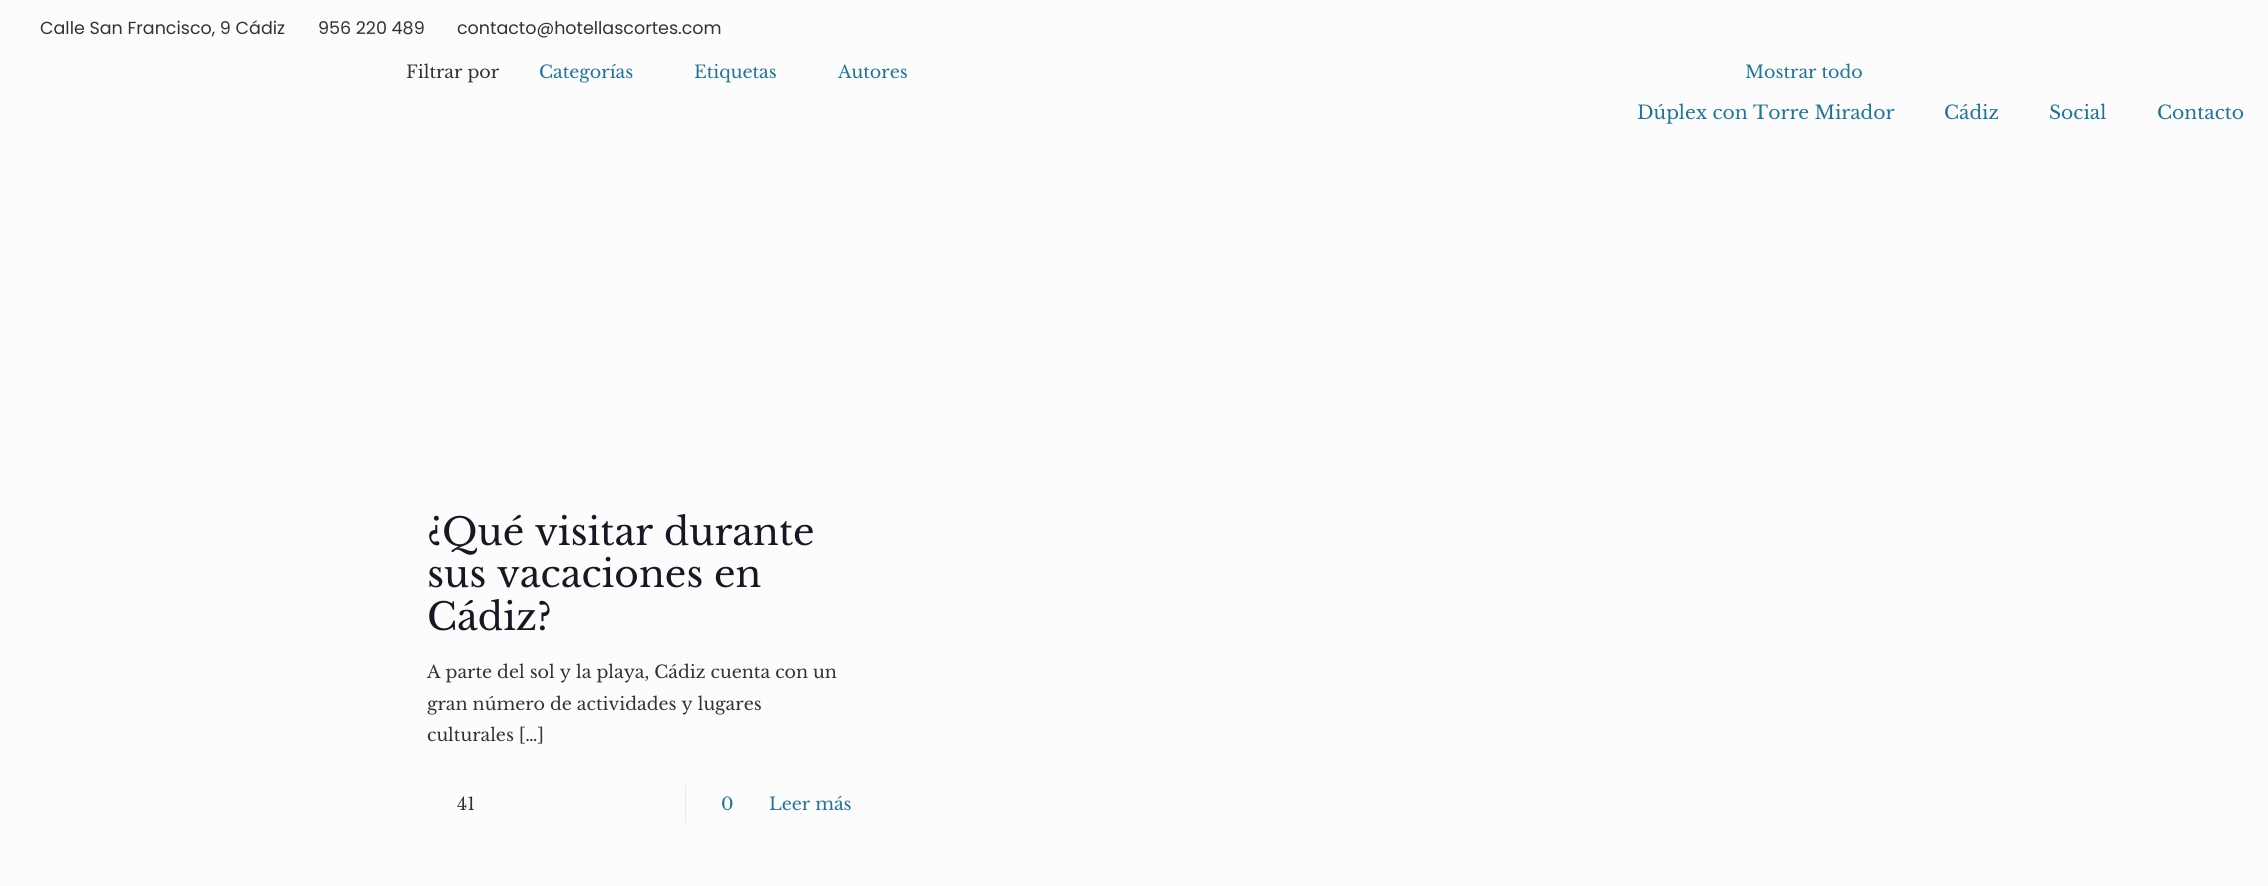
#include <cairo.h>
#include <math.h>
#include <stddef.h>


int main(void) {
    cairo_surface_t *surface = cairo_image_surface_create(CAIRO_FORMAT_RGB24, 2268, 886);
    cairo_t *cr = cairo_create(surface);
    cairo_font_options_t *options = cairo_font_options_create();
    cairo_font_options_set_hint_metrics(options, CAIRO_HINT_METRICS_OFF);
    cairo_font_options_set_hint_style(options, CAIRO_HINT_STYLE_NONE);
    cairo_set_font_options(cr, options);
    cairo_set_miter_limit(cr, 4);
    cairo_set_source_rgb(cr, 0.988, 0.988, 0.988);
    cairo_paint(cr);
    cairo_select_font_face(cr, "Poppins", CAIRO_FONT_SLANT_NORMAL, CAIRO_FONT_WEIGHT_NORMAL);
    cairo_set_font_size(cr, 17.5);
    cairo_set_source_rgb(cr, 0.2, 0.2, 0.2);
    cairo_move_to(cr, 40, 34);
    cairo_show_text(cr, "Calle San Francisco, 9 Cádiz");
    cairo_move_to(cr, 318, 34);
    cairo_show_text(cr, "956 220 489");
    cairo_move_to(cr, 457, 34);
    cairo_show_text(cr, "contacto@hotellascortes.com");
    cairo_select_font_face(cr, "Libre Baskerville", CAIRO_FONT_SLANT_NORMAL, CAIRO_FONT_WEIGHT_NORMAL);
    cairo_set_font_size(cr, 18.75);
    cairo_set_source_rgb(cr, 0.129, 0.459, 0.6);
    cairo_move_to(cr, 1637, 119);
    cairo_show_text(cr, "Dúplex con Torre Mirador");
    cairo_move_to(cr, 1944, 119);
    cairo_show_text(cr, "Cádiz");
    cairo_move_to(cr, 2049, 119);
    cairo_show_text(cr, "Social");
    cairo_move_to(cr, 2157, 119);
    cairo_show_text(cr, "Contacto");
    cairo_set_font_size(cr, 17.5);
    cairo_set_source_rgb(cr, 0.2, 0.2, 0.2);
    cairo_move_to(cr, 406, 78);
    cairo_show_text(cr, "Filtrar por");
    cairo_set_source_rgb(cr, 0.129, 0.459, 0.6);
    cairo_move_to(cr, 539, 78);
    cairo_show_text(cr, "Categorías");
    cairo_move_to(cr, 694, 78);
    cairo_show_text(cr, "Etiquetas");
    cairo_move_to(cr, 838, 78);
    cairo_show_text(cr, "Autores");
    cairo_move_to(cr, 1745, 78);
    cairo_show_text(cr, "Mostrar todo");
    cairo_set_font_size(cr, 37.5);
    cairo_set_source_rgb(cr, 0.086, 0.098, 0.133);
    cairo_move_to(cr, 427, 545);
    cairo_show_text(cr, "¿Qué visitar durante");
    cairo_move_to(cr, 427, 587);
    cairo_show_text(cr, "sus vacaciones en");
    cairo_move_to(cr, 427, 630);
    cairo_show_text(cr, "Cádiz?");
    cairo_set_font_size(cr, 17.5);
    cairo_set_source_rgb(cr, 0.2, 0.2, 0.2);
    cairo_move_to(cr, 427, 678);
    cairo_show_text(cr, "A parte del sol y la playa, Cádiz cuenta con un");
    cairo_move_to(cr, 427, 710);
    cairo_show_text(cr, "gran número de actividades y lugares");
    cairo_move_to(cr, 427, 741);
    cairo_show_text(cr, "culturales […]");
    cairo_move_to(cr, 457, 810);
    cairo_show_text(cr, "41");
    cairo_set_source_rgb(cr, 0.91, 0.91, 0.91);
    cairo_rectangle(cr, 685, 785, 1, 38);
    cairo_fill(cr);
    cairo_set_source_rgb(cr, 0.129, 0.459, 0.6);
    cairo_move_to(cr, 721, 810);
    cairo_show_text(cr, "0");
    cairo_move_to(cr, 769, 810);
    cairo_show_text(cr, "Leer más");
    cairo_surface_write_to_png(surface, "page.png");
    cairo_font_options_destroy(options);
    cairo_destroy(cr);
    cairo_surface_destroy(surface);
    return 0;
}
